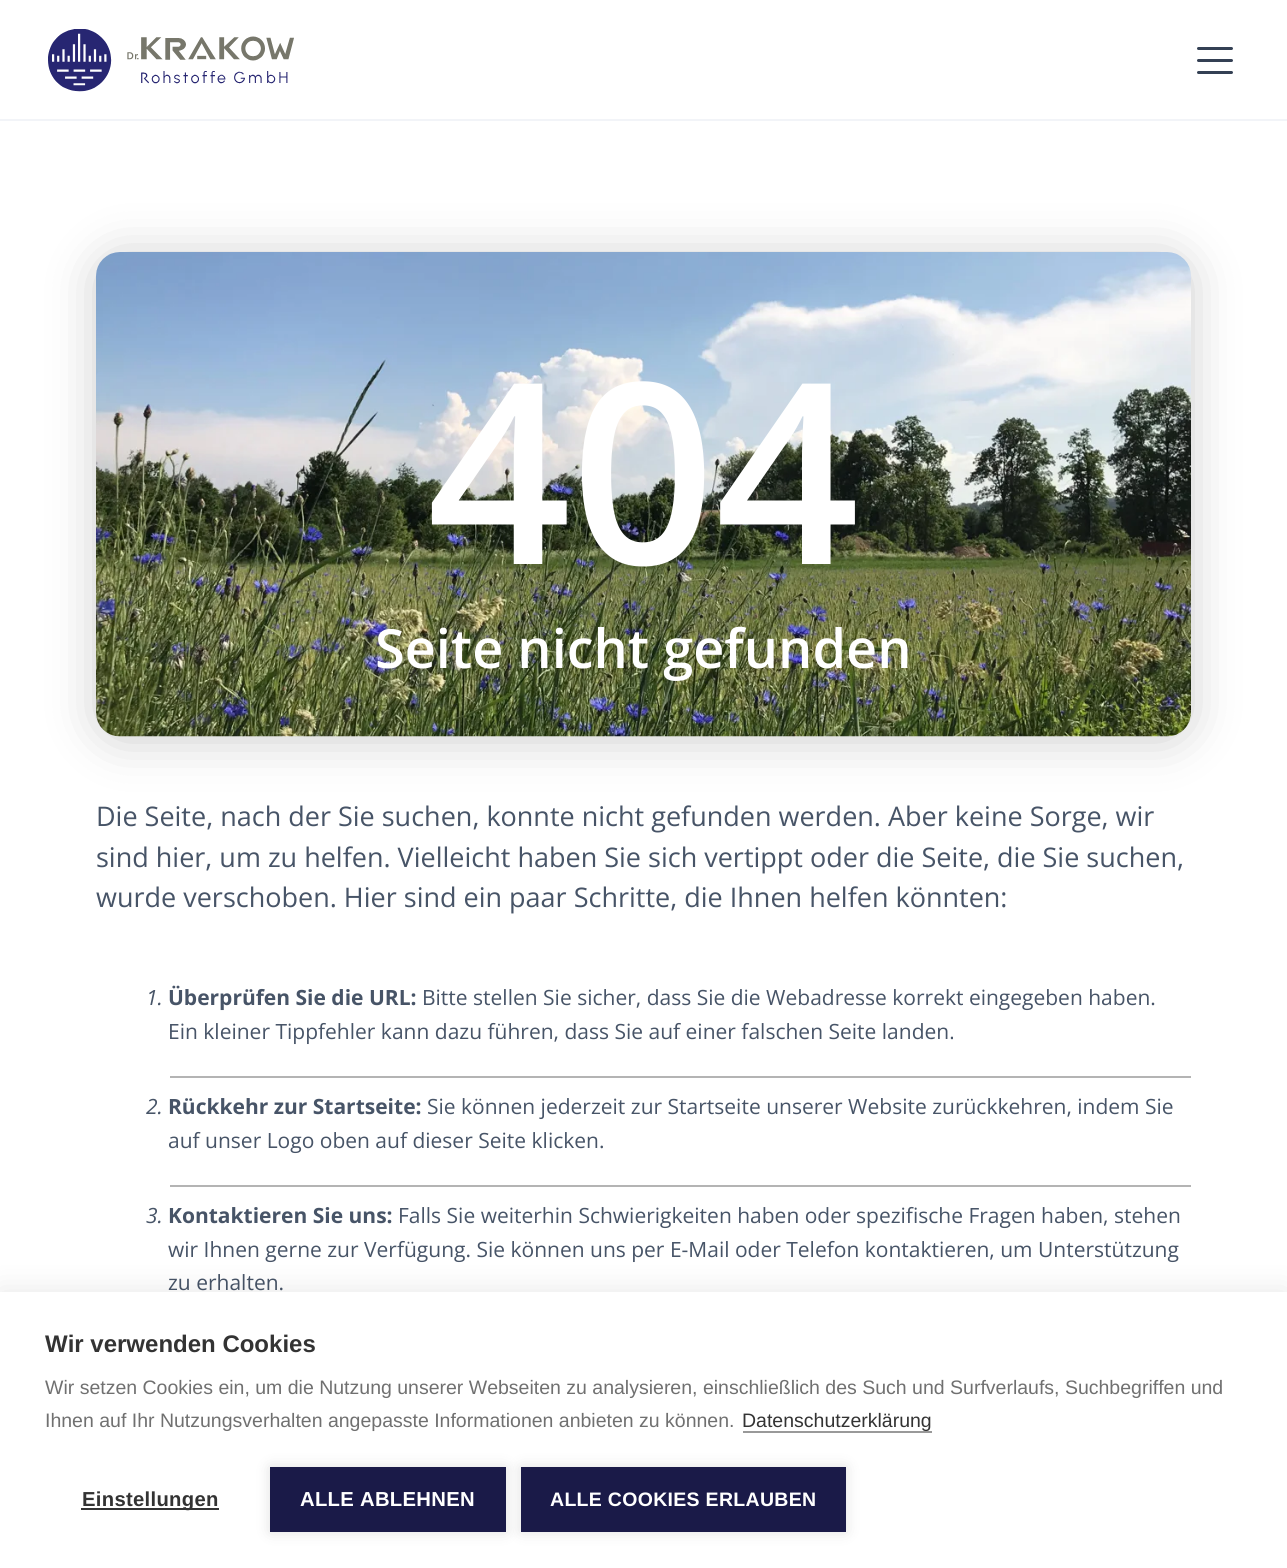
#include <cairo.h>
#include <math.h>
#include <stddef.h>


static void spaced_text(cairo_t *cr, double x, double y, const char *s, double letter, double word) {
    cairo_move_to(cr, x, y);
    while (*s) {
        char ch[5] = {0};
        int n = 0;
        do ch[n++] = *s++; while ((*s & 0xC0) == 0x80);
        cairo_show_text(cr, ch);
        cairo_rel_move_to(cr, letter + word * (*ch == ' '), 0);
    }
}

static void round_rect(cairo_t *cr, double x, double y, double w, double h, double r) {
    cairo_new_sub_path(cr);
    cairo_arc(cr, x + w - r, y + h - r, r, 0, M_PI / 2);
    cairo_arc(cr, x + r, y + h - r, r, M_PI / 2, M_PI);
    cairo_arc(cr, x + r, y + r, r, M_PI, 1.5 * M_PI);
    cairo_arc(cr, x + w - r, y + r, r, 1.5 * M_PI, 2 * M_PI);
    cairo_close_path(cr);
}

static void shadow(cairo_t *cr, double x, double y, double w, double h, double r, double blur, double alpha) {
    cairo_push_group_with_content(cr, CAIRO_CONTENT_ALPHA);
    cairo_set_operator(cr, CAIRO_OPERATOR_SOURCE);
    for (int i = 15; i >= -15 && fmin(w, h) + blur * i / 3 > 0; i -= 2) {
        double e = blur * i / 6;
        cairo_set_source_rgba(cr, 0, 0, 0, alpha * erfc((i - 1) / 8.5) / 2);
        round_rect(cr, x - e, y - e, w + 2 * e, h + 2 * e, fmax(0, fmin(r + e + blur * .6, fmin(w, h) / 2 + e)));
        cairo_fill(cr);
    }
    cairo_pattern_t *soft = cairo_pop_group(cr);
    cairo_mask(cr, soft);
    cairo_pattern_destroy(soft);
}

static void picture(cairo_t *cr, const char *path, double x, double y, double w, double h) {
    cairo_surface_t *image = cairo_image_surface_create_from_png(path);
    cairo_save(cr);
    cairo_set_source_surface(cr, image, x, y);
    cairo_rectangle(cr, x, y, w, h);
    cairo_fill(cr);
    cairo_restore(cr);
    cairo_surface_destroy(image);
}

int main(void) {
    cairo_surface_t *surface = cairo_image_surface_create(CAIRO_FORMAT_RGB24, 1287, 1568);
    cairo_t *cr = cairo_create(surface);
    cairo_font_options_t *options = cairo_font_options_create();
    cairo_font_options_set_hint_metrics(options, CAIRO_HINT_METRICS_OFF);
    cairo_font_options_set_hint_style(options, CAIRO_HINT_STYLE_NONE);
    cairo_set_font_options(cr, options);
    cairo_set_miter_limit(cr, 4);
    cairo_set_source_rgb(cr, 1, 1, 1);
    cairo_paint(cr);
    cairo_set_source_rgb(cr, 0.949, 0.957, 0.969);
    cairo_rectangle(cr, 0, 119, 1287, 2);
    cairo_fill(cr);
    picture(cr, "img1.png", 48, 29, 246, 63);
    cairo_set_source_rgb(cr, 0.204, 0.251, 0.329);
    round_rect(cr, 1197, 47, 36, 3, 1.5);
    cairo_fill(cr);
    round_rect(cr, 1197, 59, 36, 3, 1.5);
    cairo_fill(cr);
    round_rect(cr, 1197, 71, 36, 3, 1.5);
    cairo_fill(cr);
    cairo_set_source_rgb(cr, 0, 0, 0);
    shadow(cr, 96, 255, 1095, 485, 24, 24, 0.2);
    picture(cr, "img2.png", 96, 252, 1095, 485);
    cairo_select_font_face(cr, "Open Sans SemiBold", CAIRO_FONT_SLANT_NORMAL, CAIRO_FONT_WEIGHT_NORMAL);
    cairo_set_font_size(cr, 252);
    cairo_set_source_rgb(cr, 1, 1, 1);
    cairo_move_to(cr, 427, 564);
    cairo_show_text(cr, "404");
    cairo_select_font_face(cr, "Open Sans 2 SemiBold", CAIRO_FONT_SLANT_NORMAL, CAIRO_FONT_WEIGHT_NORMAL);
    cairo_set_font_size(cr, 54);
    cairo_move_to(cr, 375, 668);
    cairo_show_text(cr, "Seite nicht gefunden");
    cairo_select_font_face(cr, "Open Sans", CAIRO_FONT_SLANT_NORMAL, CAIRO_FONT_WEIGHT_NORMAL);
    cairo_set_font_size(cr, 27);
    cairo_set_source_rgb(cr, 0.278, 0.329, 0.404);
    cairo_move_to(cr, 96, 826);
    cairo_show_text(cr, "Die Seite, nach der Sie suchen, konnte nicht gefunden werden. Aber keine Sorge, wir");
    cairo_move_to(cr, 96, 867);
    cairo_show_text(cr, "sind hier, um zu helfen. Vielleicht haben Sie sich vertippt oder die Seite, die Sie suchen,");
    cairo_move_to(cr, 96, 907);
    cairo_show_text(cr, "wurde verschoben. Hier sind ein paar Schritte, die Ihnen helfen könnten:");
    cairo_set_source_rgb(cr, 0.706, 0.706, 0.706);
    cairo_rectangle(cr, 170, 1076, 1021, 2);
    cairo_fill(cr);
    cairo_select_font_face(cr, "Open Sans", CAIRO_FONT_SLANT_ITALIC, CAIRO_FONT_WEIGHT_NORMAL);
    cairo_set_font_size(cr, 21);
    cairo_set_source_rgb(cr, 0.278, 0.329, 0.404);
    cairo_move_to(cr, 146, 1005);
    cairo_show_text(cr, "1.");
    cairo_select_font_face(cr, "Open Sans", CAIRO_FONT_SLANT_NORMAL, CAIRO_FONT_WEIGHT_BOLD);
    cairo_move_to(cr, 168, 1005);
    cairo_show_text(cr, "Überprüfen Sie die URL:");
    cairo_select_font_face(cr, "Open Sans 2", CAIRO_FONT_SLANT_NORMAL, CAIRO_FONT_WEIGHT_NORMAL);
    cairo_move_to(cr, 422, 1005);
    cairo_show_text(cr, "Bitte stellen Sie sicher, dass Sie die Webadresse korrekt eingegeben haben.");
    cairo_move_to(cr, 168, 1039);
    cairo_show_text(cr, "Ein kleiner Tippfehler kann dazu führen, dass Sie auf einer falschen Seite landen.");
    cairo_set_source_rgb(cr, 0.706, 0.706, 0.706);
    cairo_rectangle(cr, 170, 1185, 1021, 2);
    cairo_fill(cr);
    cairo_select_font_face(cr, "Open Sans", CAIRO_FONT_SLANT_ITALIC, CAIRO_FONT_WEIGHT_NORMAL);
    cairo_set_source_rgb(cr, 0.278, 0.329, 0.404);
    cairo_move_to(cr, 146, 1114);
    cairo_show_text(cr, "2.");
    cairo_select_font_face(cr, "Open Sans", CAIRO_FONT_SLANT_NORMAL, CAIRO_FONT_WEIGHT_BOLD);
    cairo_move_to(cr, 168, 1114);
    cairo_show_text(cr, "Rückkehr zur Startseite:");
    cairo_select_font_face(cr, "Open Sans 2", CAIRO_FONT_SLANT_NORMAL, CAIRO_FONT_WEIGHT_NORMAL);
    cairo_move_to(cr, 427, 1114);
    cairo_show_text(cr, "Sie können jederzeit zur Startseite unserer Website zurückkehren, indem Sie");
    cairo_move_to(cr, 168, 1148);
    cairo_show_text(cr, "auf unser Logo oben auf dieser Seite klicken.");
    cairo_select_font_face(cr, "Open Sans", CAIRO_FONT_SLANT_ITALIC, CAIRO_FONT_WEIGHT_NORMAL);
    cairo_move_to(cr, 146, 1223);
    cairo_show_text(cr, "3.");
    cairo_select_font_face(cr, "Open Sans", CAIRO_FONT_SLANT_NORMAL, CAIRO_FONT_WEIGHT_BOLD);
    cairo_move_to(cr, 168, 1223);
    cairo_show_text(cr, "Kontaktieren Sie uns:");
    cairo_select_font_face(cr, "Open Sans 2", CAIRO_FONT_SLANT_NORMAL, CAIRO_FONT_WEIGHT_NORMAL);
    cairo_move_to(cr, 398, 1223);
    cairo_show_text(cr, "Falls Sie weiterhin Schwierigkeiten haben oder spezifische Fragen haben, stehen");
    cairo_move_to(cr, 168, 1257);
    cairo_show_text(cr, "wir Ihnen gerne zur Verfügung. Sie können uns per E-Mail oder Telefon kontaktieren, um Unterstützung");
    cairo_move_to(cr, 168, 1290);
    cairo_show_text(cr, "zu erhalten.");
    cairo_set_source_rgb(cr, 0, 0, 0);
    shadow(cr, 0, 1292, 1287, 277, 0, 15, 0.1);
    cairo_set_source_rgb(cr, 1, 1, 1);
    cairo_rectangle(cr, 0, 1292, 1287, 276);
    cairo_fill(cr);
    cairo_select_font_face(cr, "Liberation Sans", CAIRO_FONT_SLANT_NORMAL, CAIRO_FONT_WEIGHT_BOLD);
    cairo_set_font_size(cr, 24);
    cairo_set_source_rgb(cr, 0.2, 0.2, 0.2);
    cairo_move_to(cr, 45, 1352);
    cairo_show_text(cr, "Wir verwenden Cookies");
    cairo_select_font_face(cr, "Liberation Sans", CAIRO_FONT_SLANT_NORMAL, CAIRO_FONT_WEIGHT_NORMAL);
    cairo_set_font_size(cr, 19.5);
    cairo_set_source_rgb(cr, 0.439, 0.439, 0.439);
    cairo_move_to(cr, 45, 1394);
    cairo_show_text(cr, "Wir setzen Cookies ein, um die Nutzung unserer Webseiten zu analysieren, einschließlich des Such und Surfverlaufs, Suchbegriffen und");
    cairo_move_to(cr, 45, 1427);
    cairo_show_text(cr, "Ihnen auf Ihr Nutzungsverhalten angepasste Informationen anbieten zu können.");
    cairo_set_source_rgb(cr, 0.6, 0.6, 0.6);
    cairo_rectangle(cr, 743, 1431, 189, 2);
    cairo_fill(cr);
    cairo_set_source_rgb(cr, 0.2, 0.2, 0.2);
    cairo_move_to(cr, 742, 1427);
    cairo_show_text(cr, "Datenschutzerklärung");
    cairo_rectangle(cr, 81, 1508, 138, 2);
    cairo_fill(cr);
    cairo_select_font_face(cr, "Liberation Sans", CAIRO_FONT_SLANT_NORMAL, CAIRO_FONT_WEIGHT_BOLD);
    cairo_set_font_size(cr, 20.25);
    spaced_text(cr, 82, 1506, "Einstellungen", 0.3, 0);
    cairo_set_source_rgb(cr, 0, 0, 0);
    shadow(cr, 270, 1467, 236, 65, 0, 7.5, 0.12);
    cairo_set_source_rgb(cr, 0.102, 0.102, 0.282);
    cairo_rectangle(cr, 270, 1467, 236, 65);
    cairo_fill(cr);
    cairo_set_source_rgb(cr, 1, 1, 1);
    spaced_text(cr, 300, 1506, "ALLE ABLEHNEN", 0.3, 0);
    cairo_set_source_rgb(cr, 0, 0, 0);
    shadow(cr, 521, 1467, 325, 65, 0, 7.5, 0.12);
    cairo_set_source_rgb(cr, 0.102, 0.102, 0.282);
    cairo_rectangle(cr, 521, 1467, 325, 65);
    cairo_fill(cr);
    cairo_set_font_size(cr, 19.5);
    cairo_set_source_rgb(cr, 1, 1, 1);
    spaced_text(cr, 550, 1506, "ALLE COOKIES ERLAUBEN", 0.3, 0);
    cairo_surface_write_to_png(surface, "page.png");
    cairo_font_options_destroy(options);
    cairo_destroy(cr);
    cairo_surface_destroy(surface);
    return 0;
}
